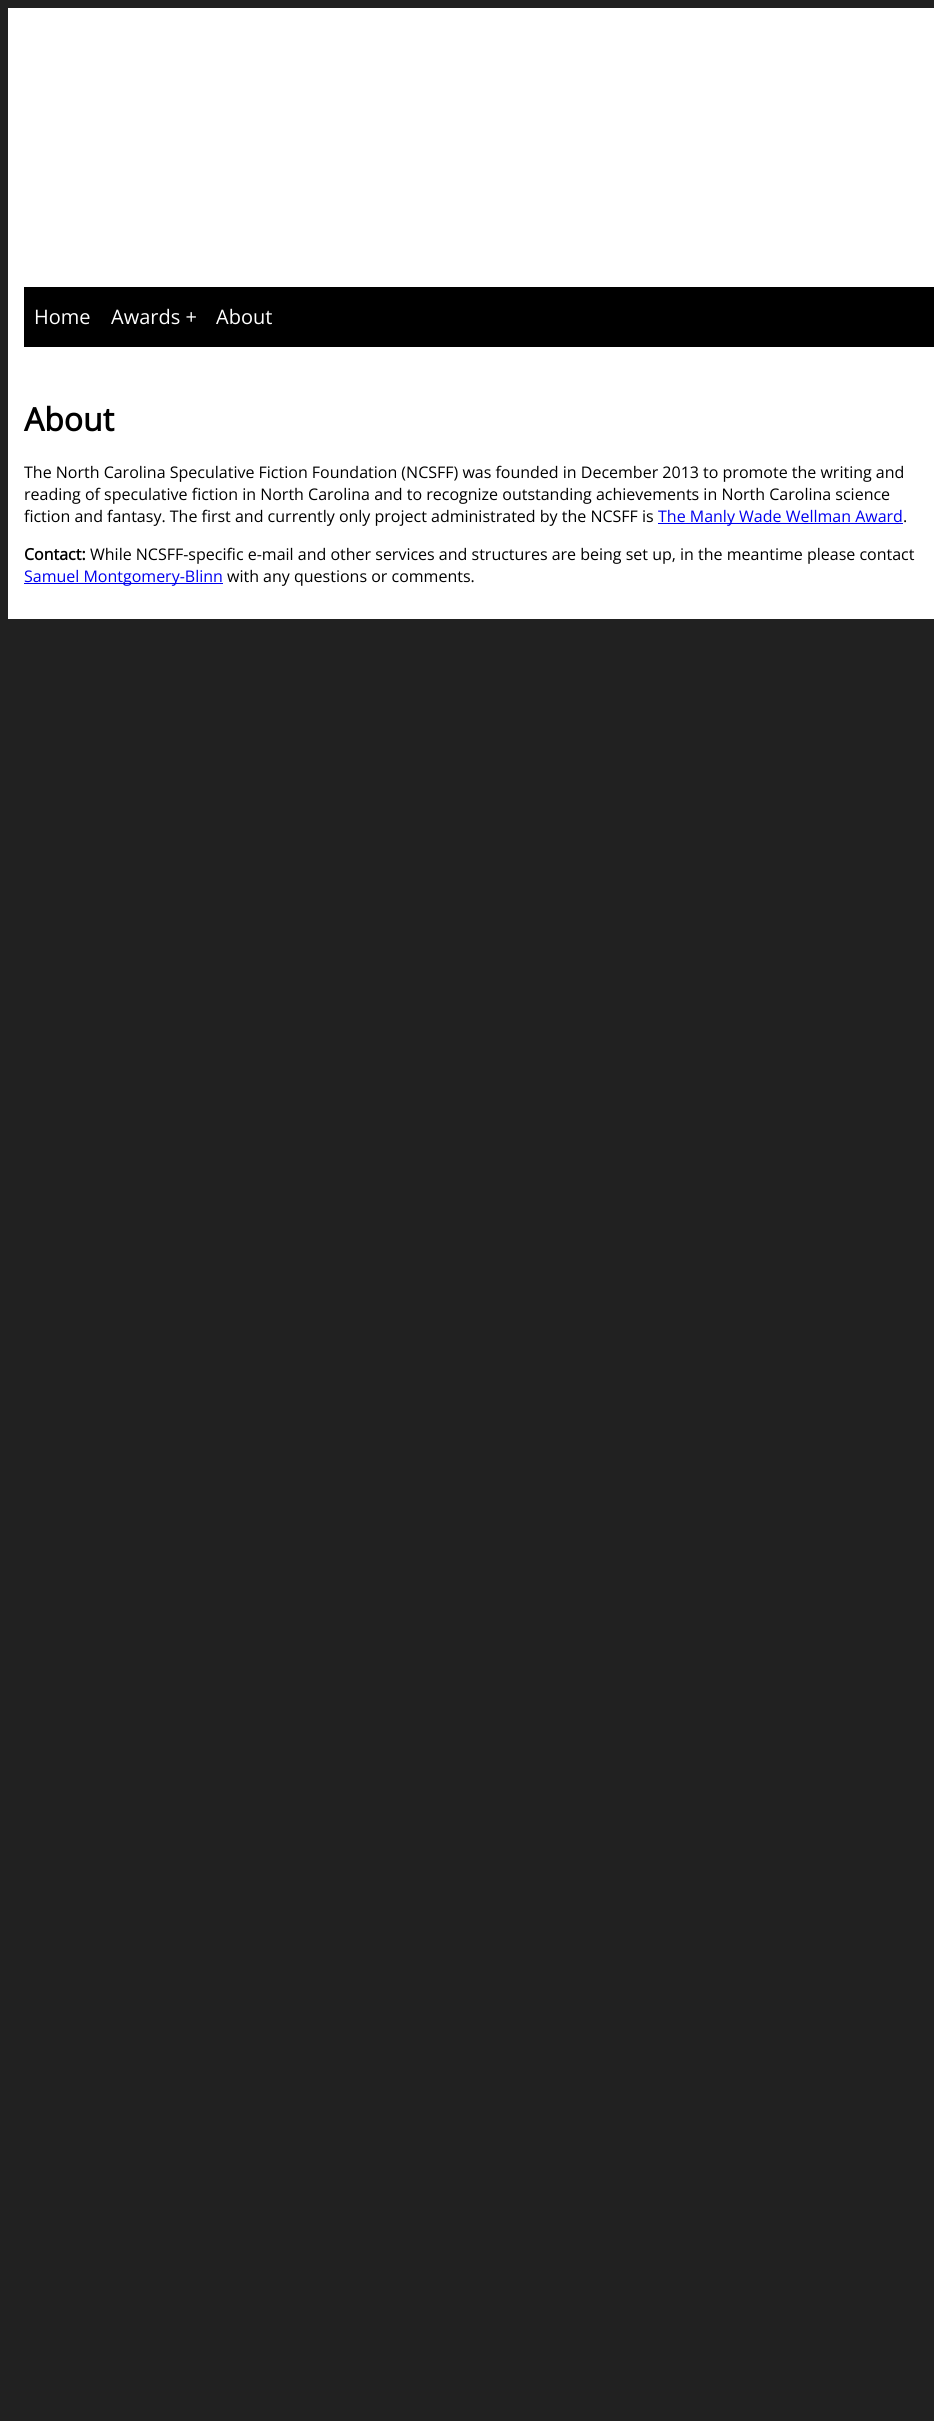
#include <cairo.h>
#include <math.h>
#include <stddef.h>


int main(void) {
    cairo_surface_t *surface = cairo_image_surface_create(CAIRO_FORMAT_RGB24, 934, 2421);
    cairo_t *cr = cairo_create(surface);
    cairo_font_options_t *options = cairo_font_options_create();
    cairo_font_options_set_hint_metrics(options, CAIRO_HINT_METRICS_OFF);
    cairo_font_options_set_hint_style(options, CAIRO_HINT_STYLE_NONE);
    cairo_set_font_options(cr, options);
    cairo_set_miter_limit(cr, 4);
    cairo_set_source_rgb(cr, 0.129, 0.129, 0.129);
    cairo_paint(cr);
    cairo_set_source_rgb(cr, 1, 1, 1);
    cairo_rectangle(cr, 8, 8, 926, 611);
    cairo_fill(cr);
    cairo_set_source_rgb(cr, 0, 0, 0);
    cairo_rectangle(cr, 24, 287, 910, 60);
    cairo_fill(cr);
    cairo_select_font_face(cr, "Open Sans", CAIRO_FONT_SLANT_NORMAL, CAIRO_FONT_WEIGHT_NORMAL);
    cairo_set_font_size(cr, 20);
    cairo_set_source_rgb(cr, 1, 1, 1);
    cairo_move_to(cr, 34, 324);
    cairo_show_text(cr, "Home");
    cairo_move_to(cr, 111, 324);
    cairo_show_text(cr, "Awards +");
    cairo_move_to(cr, 216, 324);
    cairo_show_text(cr, "About");
    cairo_select_font_face(cr, "Open Sans", CAIRO_FONT_SLANT_NORMAL, CAIRO_FONT_WEIGHT_BOLD);
    cairo_set_font_size(cr, 32);
    cairo_set_source_rgb(cr, 0, 0, 0);
    cairo_move_to(cr, 24, 431);
    cairo_show_text(cr, "About");
    cairo_select_font_face(cr, "Open Sans", CAIRO_FONT_SLANT_NORMAL, CAIRO_FONT_WEIGHT_NORMAL);
    cairo_set_font_size(cr, 16);
    cairo_move_to(cr, 24, 478);
    cairo_show_text(cr, "The North Carolina Speculative Fiction Foundation (NCSFF) was founded in December 2013 to promote the writing and");
    cairo_move_to(cr, 24, 500);
    cairo_show_text(cr, "reading of speculative fiction in North Carolina and to recognize outstanding achievements in North Carolina science");
    cairo_move_to(cr, 24, 522);
    cairo_show_text(cr, "fiction and fantasy. The first and currently only project administrated by the NCSFF is");
    cairo_set_source_rgb(cr, 0, 0, 0.933);
    cairo_rectangle(cr, 658, 523, 245, 1);
    cairo_fill(cr);
    cairo_move_to(cr, 658, 522);
    cairo_show_text(cr, "The Manly Wade Wellman Award");
    cairo_set_source_rgb(cr, 0, 0, 0);
    cairo_move_to(cr, 903, 522);
    cairo_show_text(cr, ".");
    cairo_select_font_face(cr, "Open Sans", CAIRO_FONT_SLANT_NORMAL, CAIRO_FONT_WEIGHT_BOLD);
    cairo_move_to(cr, 24, 560);
    cairo_show_text(cr, "Contact:");
    cairo_select_font_face(cr, "Open Sans", CAIRO_FONT_SLANT_NORMAL, CAIRO_FONT_WEIGHT_NORMAL);
    cairo_move_to(cr, 90, 560);
    cairo_show_text(cr, "While NCSFF-specific e-mail and other services and structures are being set up, in the meantime please contact");
    cairo_set_source_rgb(cr, 0, 0, 0.933);
    cairo_rectangle(cr, 24, 583, 199, 1);
    cairo_fill(cr);
    cairo_move_to(cr, 24, 582);
    cairo_show_text(cr, "Samuel Montgomery-Blinn");
    cairo_set_source_rgb(cr, 0, 0, 0);
    cairo_move_to(cr, 227, 582);
    cairo_show_text(cr, "with any questions or comments.");
    cairo_surface_write_to_png(surface, "page.png");
    cairo_font_options_destroy(options);
    cairo_destroy(cr);
    cairo_surface_destroy(surface);
    return 0;
}
